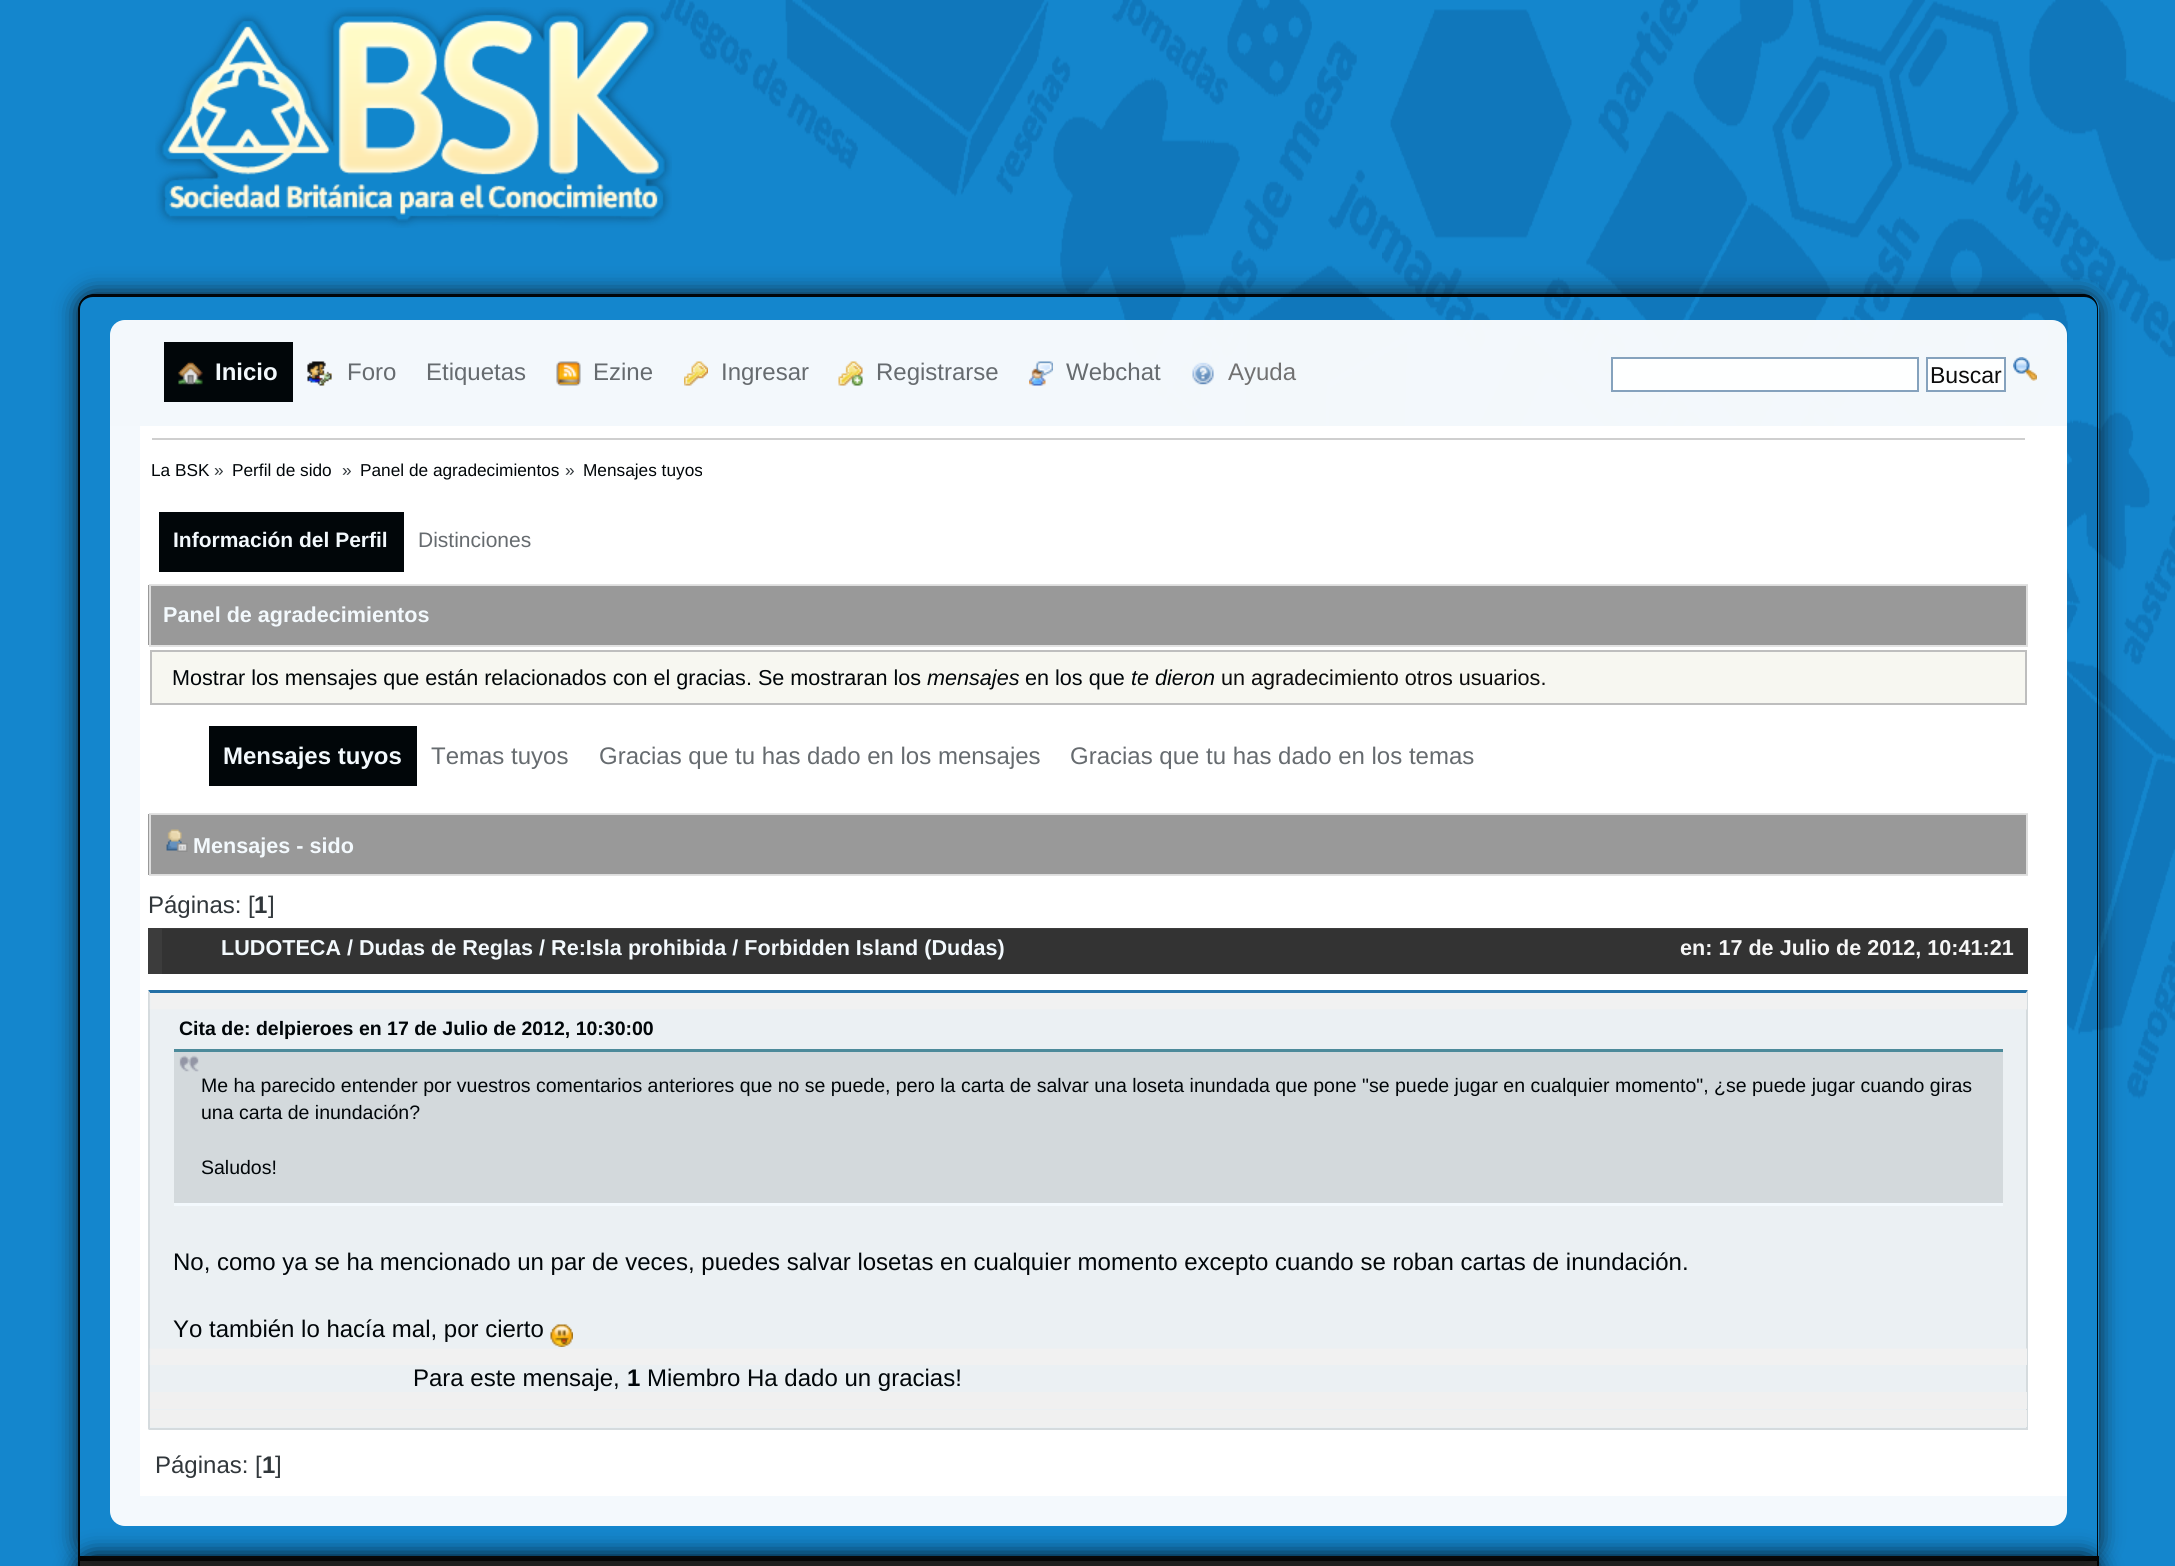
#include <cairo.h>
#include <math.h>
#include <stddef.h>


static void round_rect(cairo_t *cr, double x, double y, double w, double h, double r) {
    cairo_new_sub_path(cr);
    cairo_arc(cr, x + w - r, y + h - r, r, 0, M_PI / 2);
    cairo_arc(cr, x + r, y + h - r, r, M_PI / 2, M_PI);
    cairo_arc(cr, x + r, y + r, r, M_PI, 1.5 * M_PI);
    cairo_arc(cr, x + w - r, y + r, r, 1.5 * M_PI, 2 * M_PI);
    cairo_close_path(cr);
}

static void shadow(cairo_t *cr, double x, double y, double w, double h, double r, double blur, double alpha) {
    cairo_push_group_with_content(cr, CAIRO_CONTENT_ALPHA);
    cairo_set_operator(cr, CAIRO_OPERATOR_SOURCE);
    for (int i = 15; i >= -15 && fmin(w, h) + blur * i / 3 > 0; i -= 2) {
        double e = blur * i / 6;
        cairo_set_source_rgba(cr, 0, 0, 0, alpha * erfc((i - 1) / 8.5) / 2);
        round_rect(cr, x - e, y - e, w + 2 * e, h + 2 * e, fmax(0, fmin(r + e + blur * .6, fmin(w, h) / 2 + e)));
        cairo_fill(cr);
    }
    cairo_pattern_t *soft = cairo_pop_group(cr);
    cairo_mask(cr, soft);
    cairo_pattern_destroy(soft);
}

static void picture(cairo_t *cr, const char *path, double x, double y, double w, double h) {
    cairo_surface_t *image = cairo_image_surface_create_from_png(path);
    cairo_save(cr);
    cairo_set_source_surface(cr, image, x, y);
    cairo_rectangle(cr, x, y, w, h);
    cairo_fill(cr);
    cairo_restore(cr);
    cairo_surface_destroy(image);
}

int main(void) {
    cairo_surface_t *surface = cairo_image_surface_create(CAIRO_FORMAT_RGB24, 2175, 1566);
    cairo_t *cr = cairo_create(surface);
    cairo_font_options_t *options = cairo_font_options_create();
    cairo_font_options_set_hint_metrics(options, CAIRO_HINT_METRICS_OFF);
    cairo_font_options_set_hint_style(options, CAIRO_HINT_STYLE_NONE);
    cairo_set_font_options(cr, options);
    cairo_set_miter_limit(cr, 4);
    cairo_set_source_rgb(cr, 1, 1, 1);
    cairo_paint(cr);
    picture(cr, "img1.png", 0, 0, 2175, 1566);
    picture(cr, "img2.png", 155, 7, 517, 221);
    cairo_set_source_rgb(cr, 0, 0, 0);
    shadow(cr, 78, 1556, 2021, 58, 15, 11, 1);
    cairo_set_source_rgb(cr, 0.133, 0.133, 0.133);
    cairo_rectangle(cr, 80, 1561, 2017, 5);
    cairo_fill(cr);
    cairo_set_source_rgb(cr, 0, 0, 0);
    cairo_rectangle(cr, 78, 1556, 2021, 5);
    cairo_fill(cr);
    cairo_rectangle(cr, 2097, 1556, 2, 10);
    cairo_fill(cr);
    cairo_rectangle(cr, 78, 1556, 2, 10);
    cairo_fill(cr);
    cairo_save(cr);
    cairo_set_fill_rule(cr, CAIRO_FILL_RULE_EVEN_ODD);
    cairo_new_path(cr);
    cairo_move_to(cr, 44, 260);
    cairo_line_to(cr, 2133, 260);
    cairo_line_to(cr, 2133, 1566);
    cairo_line_to(cr, 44, 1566);
    cairo_close_path(cr);
    cairo_move_to(cr, 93, 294);
    cairo_line_to(cr, 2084, 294);
    cairo_curve_to(cr, 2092.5, 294, 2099, 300.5, 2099, 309);
    cairo_line_to(cr, 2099, 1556);
    cairo_line_to(cr, 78, 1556);
    cairo_line_to(cr, 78, 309);
    cairo_curve_to(cr, 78, 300.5, 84.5, 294, 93, 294);
    cairo_close_path(cr);
    cairo_clip(cr);
    cairo_set_source_rgb(cr, 0.067, 0.067, 0.067);
    shadow(cr, 78, 294, 2021, 1262, 15, 11, 0.95);
    cairo_restore(cr);
    cairo_set_source_rgba(cr, 0, 0, 0, 0.95);
    cairo_set_fill_rule(cr, CAIRO_FILL_RULE_EVEN_ODD);
    cairo_new_path(cr);
    cairo_move_to(cr, 93, 294);
    cairo_line_to(cr, 2084, 294);
    cairo_curve_to(cr, 2092, 294, 2098, 301, 2098, 309);
    cairo_line_to(cr, 2098, 1556);
    cairo_line_to(cr, 78, 1556);
    cairo_line_to(cr, 78, 309);
    cairo_curve_to(cr, 78, 301, 85, 294, 93, 294);
    cairo_close_path(cr);
    cairo_move_to(cr, 93, 297);
    cairo_line_to(cr, 2084, 297);
    cairo_curve_to(cr, 2091, 297, 2097, 302, 2097, 309);
    cairo_line_to(cr, 2097, 1556);
    cairo_line_to(cr, 80, 1556);
    cairo_line_to(cr, 80, 309);
    cairo_curve_to(cr, 80, 302, 86, 297, 93, 297);
    cairo_close_path(cr);
    cairo_fill(cr);
    cairo_set_source_rgba(cr, 0.996, 0.996, 0.996, 0.95);
    cairo_new_path(cr);
    cairo_move_to(cr, 125, 320);
    cairo_line_to(cr, 2052, 320);
    cairo_curve_to(cr, 2060.5, 320, 2067, 326.5, 2067, 335);
    cairo_line_to(cr, 2067, 426);
    cairo_line_to(cr, 110, 426);
    cairo_line_to(cr, 110, 335);
    cairo_curve_to(cr, 110, 326.5, 116.5, 320, 125, 320);
    cairo_close_path(cr);
    cairo_fill(cr);
    cairo_set_source_rgb(cr, 0.004, 0.027, 0.039);
    cairo_rectangle(cr, 164, 342, 129, 60);
    cairo_fill(cr);
    picture(cr, "img3.png", 178, 361, 25, 24);
    cairo_select_font_face(cr, "Liberation Sans", CAIRO_FONT_SLANT_NORMAL, CAIRO_FONT_WEIGHT_BOLD);
    cairo_set_font_size(cr, 24);
    cairo_set_source_rgb(cr, 0.953, 0.976, 0.992);
    cairo_move_to(cr, 215, 380);
    cairo_show_text(cr, "Inicio");
    picture(cr, "img4.png", 307, 361, 25, 25);
    cairo_select_font_face(cr, "Liberation Sans", CAIRO_FONT_SLANT_NORMAL, CAIRO_FONT_WEIGHT_NORMAL);
    cairo_set_source_rgb(cr, 0.4, 0.42, 0.435);
    cairo_move_to(cr, 347, 380);
    cairo_show_text(cr, "Foro");
    cairo_move_to(cr, 426, 380);
    cairo_show_text(cr, "Etiquetas");
    picture(cr, "img5.png", 556, 361, 25, 25);
    cairo_move_to(cr, 593, 380);
    cairo_show_text(cr, "Ezine");
    picture(cr, "img6.png", 684, 361, 24, 25);
    cairo_move_to(cr, 721, 380);
    cairo_show_text(cr, "Ingresar");
    picture(cr, "img7.png", 838, 361, 25, 25);
    cairo_move_to(cr, 876, 380);
    cairo_show_text(cr, "Registrarse");
    picture(cr, "img8.png", 1029, 361, 24, 25);
    cairo_move_to(cr, 1066, 380);
    cairo_show_text(cr, "Webchat");
    picture(cr, "img9.png", 1192, 362, 22, 23);
    cairo_set_source_rgb(cr, 0.443, 0.443, 0.443);
    cairo_move_to(cr, 1228, 380);
    cairo_show_text(cr, "Ayuda");
    cairo_set_source_rgb(cr, 0.996, 1, 1);
    cairo_rectangle(cr, 1612, 358, 306, 33);
    cairo_fill_preserve(cr);
    cairo_set_source_rgb(cr, 0.522, 0.635, 0.741);
    cairo_stroke(cr);
    cairo_set_source_rgb(cr, 0.996, 1, 1);
    cairo_rectangle(cr, 1927, 358, 78, 33);
    cairo_fill_preserve(cr);
    cairo_set_source_rgb(cr, 0.522, 0.635, 0.741);
    cairo_stroke(cr);
    cairo_set_font_size(cr, 23);
    cairo_set_source_rgb(cr, 0.047, 0.047, 0.047);
    cairo_move_to(cr, 1930, 383);
    cairo_show_text(cr, "Buscar");
    picture(cr, "img10.png", 2013, 357, 24, 24);
    cairo_set_source_rgba(cr, 1, 1, 1, 0.95);
    cairo_new_path(cr);
    cairo_move_to(cr, 110, 426);
    cairo_line_to(cr, 2067, 426);
    cairo_line_to(cr, 2067, 1511);
    cairo_curve_to(cr, 2067, 1519.5, 2060.5, 1526, 2052, 1526);
    cairo_line_to(cr, 125, 1526);
    cairo_curve_to(cr, 116.5, 1526, 110, 1519.5, 110, 1511);
    cairo_close_path(cr);
    cairo_fill(cr);
    cairo_set_source_rgb(cr, 1, 1, 1);
    cairo_rectangle(cr, 140, 426, 1927, 1070);
    cairo_fill(cr);
    cairo_set_source_rgb(cr, 0.812, 0.812, 0.812);
    cairo_rectangle(cr, 152, 438, 1873, 2);
    cairo_fill(cr);
    cairo_set_font_size(cr, 17.25);
    cairo_set_source_rgb(cr, 0.004, 0.027, 0.039);
    cairo_move_to(cr, 151, 476);
    cairo_show_text(cr, "La BSK");
    cairo_set_source_rgb(cr, 0.192, 0.216, 0.231);
    cairo_move_to(cr, 214, 476);
    cairo_show_text(cr, "»");
    cairo_set_source_rgb(cr, 0.004, 0.027, 0.039);
    cairo_move_to(cr, 232, 476);
    cairo_show_text(cr, "Perfil de sido");
    cairo_set_source_rgb(cr, 0.192, 0.216, 0.231);
    cairo_move_to(cr, 342, 476);
    cairo_show_text(cr, "»");
    cairo_set_source_rgb(cr, 0.004, 0.027, 0.039);
    cairo_move_to(cr, 360, 476);
    cairo_show_text(cr, "Panel de agradecimientos");
    cairo_set_source_rgb(cr, 0.192, 0.216, 0.231);
    cairo_move_to(cr, 565, 476);
    cairo_show_text(cr, "»");
    cairo_set_source_rgb(cr, 0.004, 0.027, 0.039);
    cairo_move_to(cr, 583, 476);
    cairo_show_text(cr, "Mensajes tuyos");
    cairo_rectangle(cr, 159, 512, 245, 60);
    cairo_fill(cr);
    cairo_select_font_face(cr, "Liberation Sans", CAIRO_FONT_SLANT_NORMAL, CAIRO_FONT_WEIGHT_BOLD);
    cairo_set_font_size(cr, 21);
    cairo_set_source_rgb(cr, 0.953, 0.976, 0.992);
    cairo_move_to(cr, 173, 547);
    cairo_show_text(cr, "Información del Perfil");
    cairo_select_font_face(cr, "Liberation Sans", CAIRO_FONT_SLANT_NORMAL, CAIRO_FONT_WEIGHT_NORMAL);
    cairo_set_source_rgb(cr, 0.4, 0.42, 0.435);
    cairo_move_to(cr, 418, 547);
    cairo_show_text(cr, "Distinciones");
    cairo_set_source_rgb(cr, 0.6, 0.6, 0.6);
    cairo_rectangle(cr, 148, 585, 1880, 60);
    cairo_fill(cr);
    cairo_rectangle(cr, 150, 585, 1877, 61);
    cairo_set_source_rgba(cr, 0.882, 0.882, 0.882, 0.95);
    cairo_stroke(cr);
    cairo_select_font_face(cr, "Liberation Sans", CAIRO_FONT_SLANT_NORMAL, CAIRO_FONT_WEIGHT_BOLD);
    cairo_set_font_size(cr, 21.6);
    cairo_set_source_rgb(cr, 0.953, 0.976, 0.992);
    cairo_move_to(cr, 163, 622);
    cairo_show_text(cr, "Panel de agradecimientos");
    cairo_set_source_rgb(cr, 0.965, 0.965, 0.945);
    cairo_rectangle(cr, 151, 651, 1875, 53);
    cairo_fill_preserve(cr);
    cairo_set_source_rgb(cr, 0.745, 0.745, 0.745);
    cairo_stroke(cr);
    cairo_select_font_face(cr, "Liberation Sans", CAIRO_FONT_SLANT_NORMAL, CAIRO_FONT_WEIGHT_NORMAL);
    cairo_set_source_rgb(cr, 0.004, 0.027, 0.039);
    cairo_move_to(cr, 172, 685);
    cairo_show_text(cr, "Mostrar los mensajes que están relacionados con el gracias. Se mostraran los");
    cairo_select_font_face(cr, "Liberation Sans", CAIRO_FONT_SLANT_ITALIC, CAIRO_FONT_WEIGHT_NORMAL);
    cairo_move_to(cr, 927, 685);
    cairo_show_text(cr, "mensajes");
    cairo_select_font_face(cr, "Liberation Sans", CAIRO_FONT_SLANT_NORMAL, CAIRO_FONT_WEIGHT_NORMAL);
    cairo_move_to(cr, 1025, 685);
    cairo_show_text(cr, "en los que");
    cairo_select_font_face(cr, "Liberation Sans", CAIRO_FONT_SLANT_ITALIC, CAIRO_FONT_WEIGHT_NORMAL);
    cairo_move_to(cr, 1131, 685);
    cairo_show_text(cr, "te dieron");
    cairo_select_font_face(cr, "Liberation Sans", CAIRO_FONT_SLANT_NORMAL, CAIRO_FONT_WEIGHT_NORMAL);
    cairo_set_source_rgb(cr, 0.047, 0.047, 0.047);
    cairo_move_to(cr, 1221, 685);
    cairo_show_text(cr, "un agradecimiento otros usuarios.");
    cairo_set_source_rgb(cr, 0.004, 0.027, 0.039);
    cairo_rectangle(cr, 209, 726, 208, 60);
    cairo_fill(cr);
    cairo_select_font_face(cr, "Liberation Sans", CAIRO_FONT_SLANT_NORMAL, CAIRO_FONT_WEIGHT_BOLD);
    cairo_set_font_size(cr, 24);
    cairo_set_source_rgb(cr, 0.953, 0.976, 0.992);
    cairo_move_to(cr, 223, 764);
    cairo_show_text(cr, "Mensajes tuyos");
    cairo_select_font_face(cr, "Liberation Sans", CAIRO_FONT_SLANT_NORMAL, CAIRO_FONT_WEIGHT_NORMAL);
    cairo_set_source_rgb(cr, 0.4, 0.42, 0.435);
    cairo_move_to(cr, 431, 764);
    cairo_show_text(cr, "Temas tuyos");
    cairo_move_to(cr, 599, 764);
    cairo_show_text(cr, "Gracias que tu has dado en los mensajes");
    cairo_move_to(cr, 1070, 764);
    cairo_show_text(cr, "Gracias que tu has dado en los temas");
    cairo_set_source_rgb(cr, 0.6, 0.6, 0.6);
    cairo_rectangle(cr, 148, 814, 1880, 61);
    cairo_fill(cr);
    cairo_rectangle(cr, 150, 814, 1877, 61);
    cairo_set_source_rgba(cr, 0.882, 0.882, 0.882, 0.95);
    cairo_stroke(cr);
    picture(cr, "img11.png", 166, 829, 22, 23);
    cairo_select_font_face(cr, "Liberation Sans", CAIRO_FONT_SLANT_NORMAL, CAIRO_FONT_WEIGHT_BOLD);
    cairo_set_font_size(cr, 21.6);
    cairo_set_source_rgb(cr, 0.953, 0.976, 0.992);
    cairo_move_to(cr, 193, 853);
    cairo_show_text(cr, "Mensajes - sido");
    cairo_select_font_face(cr, "Liberation Sans", CAIRO_FONT_SLANT_NORMAL, CAIRO_FONT_WEIGHT_NORMAL);
    cairo_set_font_size(cr, 24);
    cairo_set_source_rgb(cr, 0.192, 0.216, 0.231);
    cairo_move_to(cr, 148, 913);
    cairo_show_text(cr, "Páginas: [");
    cairo_select_font_face(cr, "Liberation Sans", CAIRO_FONT_SLANT_NORMAL, CAIRO_FONT_WEIGHT_BOLD);
    cairo_move_to(cr, 254, 913);
    cairo_show_text(cr, "1");
    cairo_select_font_face(cr, "Liberation Sans", CAIRO_FONT_SLANT_NORMAL, CAIRO_FONT_WEIGHT_NORMAL);
    cairo_move_to(cr, 268, 913);
    cairo_show_text(cr, "]");
    cairo_set_source_rgb(cr, 0.235, 0.235, 0.235);
    cairo_rectangle(cr, 148, 928, 1880, 46);
    cairo_fill(cr);
    cairo_set_source_rgb(cr, 0.2, 0.2, 0.2);
    cairo_rectangle(cr, 162, 929, 1866, 45);
    cairo_fill(cr);
    cairo_select_font_face(cr, "Liberation Sans", CAIRO_FONT_SLANT_NORMAL, CAIRO_FONT_WEIGHT_BOLD);
    cairo_set_font_size(cr, 21.6);
    cairo_set_source_rgb(cr, 0.953, 0.976, 0.992);
    cairo_move_to(cr, 221, 955);
    cairo_show_text(cr, "LUDOTECA / Dudas de Reglas / Re:Isla prohibida / Forbidden Island (Dudas)");
    cairo_set_source_rgb(cr, 0.961, 0.961, 0.961);
    cairo_move_to(cr, 1680, 955);
    cairo_show_text(cr, "en: 17 de Julio de 2012, 10:41:21");
    cairo_set_source_rgb(cr, 0.918, 0.941, 0.953);
    cairo_rectangle(cr, 150, 993, 1876, 435);
    cairo_fill(cr);
    cairo_set_source_rgb(cr, 0.141, 0.439, 0.651);
    cairo_set_fill_rule(cr, CAIRO_FILL_RULE_WINDING);
    cairo_new_path(cr);
    cairo_move_to(cr, 148, 990);
    cairo_line_to(cr, 2028, 990);
    cairo_line_to(cr, 2026, 993);
    cairo_line_to(cr, 150, 993);
    cairo_close_path(cr);
    cairo_fill(cr);
    cairo_set_source_rgb(cr, 0.835, 0.859, 0.871);
    cairo_new_path(cr);
    cairo_move_to(cr, 2028, 990);
    cairo_line_to(cr, 2028, 1430);
    cairo_line_to(cr, 2026, 1428);
    cairo_line_to(cr, 2026, 993);
    cairo_close_path(cr);
    cairo_fill(cr);
    cairo_rectangle(cr, 149, 1428, 1879, 2);
    cairo_fill(cr);
    cairo_new_path(cr);
    cairo_move_to(cr, 148, 1430);
    cairo_line_to(cr, 148, 990);
    cairo_line_to(cr, 150, 993);
    cairo_line_to(cr, 150, 1428);
    cairo_close_path(cr);
    cairo_fill(cr);
    picture(cr, "img12.png", 149, 993, 1878, 17);
    cairo_set_font_size(cr, 19.5);
    cairo_set_source_rgb(cr, 0.004, 0.027, 0.039);
    cairo_move_to(cr, 179, 1035);
    cairo_show_text(cr, "Cita de: delpieroes en 17 de Julio de 2012, 10:30:00");
    cairo_set_source_rgb(cr, 0.827, 0.851, 0.863);
    cairo_rectangle(cr, 174, 1052, 1829, 151);
    cairo_fill(cr);
    picture(cr, "img13.png", 179, 1055, 20, 17);
    cairo_set_source_rgb(cr, 0.298, 0.541, 0.604);
    cairo_rectangle(cr, 174, 1049, 1829, 3);
    cairo_fill(cr);
    cairo_set_source_rgb(cr, 0.953, 0.976, 0.992);
    cairo_rectangle(cr, 174, 1203, 1829, 3);
    cairo_fill(cr);
    cairo_select_font_face(cr, "Liberation Sans", CAIRO_FONT_SLANT_NORMAL, CAIRO_FONT_WEIGHT_NORMAL);
    cairo_set_source_rgb(cr, 0.004, 0.027, 0.039);
    cairo_move_to(cr, 201, 1092);
    cairo_show_text(cr, "Me ha parecido entender por vuestros comentarios anteriores que no se puede, pero la carta de salvar una loseta inundada que pone \"se puede jugar en cualquier momento\", ¿se puede jugar cuando giras");
    cairo_move_to(cr, 201, 1119);
    cairo_show_text(cr, "una carta de inundación?");
    cairo_move_to(cr, 201, 1174);
    cairo_show_text(cr, "Saludos!");
    cairo_set_font_size(cr, 24);
    cairo_move_to(cr, 173, 1270);
    cairo_show_text(cr, "No, como ya se ha mencionado un par de veces, puedes salvar losetas en cualquier momento excepto cuando se roban cartas de inundación.");
    cairo_move_to(cr, 173, 1337);
    cairo_show_text(cr, "Yo también lo hacía mal, por cierto");
    picture(cr, "img14.png", 550, 1324, 23, 23);
    picture(cr, "img15.png", 149, 1348, 1878, 17);
    cairo_move_to(cr, 413, 1386);
    cairo_show_text(cr, "Para este mensaje,");
    cairo_select_font_face(cr, "Liberation Sans", CAIRO_FONT_SLANT_NORMAL, CAIRO_FONT_WEIGHT_BOLD);
    cairo_move_to(cr, 627, 1386);
    cairo_show_text(cr, "1");
    cairo_select_font_face(cr, "Liberation Sans", CAIRO_FONT_SLANT_NORMAL, CAIRO_FONT_WEIGHT_NORMAL);
    cairo_move_to(cr, 647, 1386);
    cairo_show_text(cr, "Miembro Ha dado un gracias!");
    cairo_set_source_rgba(cr, 0.945, 0.945, 0.945, 0.95);
    cairo_rectangle(cr, 150, 1392, 1877, 17);
    cairo_fill(cr);
    cairo_rectangle(cr, 150, 1410, 1877, 17);
    cairo_fill(cr);
    cairo_set_source_rgb(cr, 0.192, 0.216, 0.231);
    cairo_move_to(cr, 155, 1473);
    cairo_show_text(cr, "Páginas: [");
    cairo_select_font_face(cr, "Liberation Sans", CAIRO_FONT_SLANT_NORMAL, CAIRO_FONT_WEIGHT_BOLD);
    cairo_move_to(cr, 262, 1473);
    cairo_show_text(cr, "1");
    cairo_select_font_face(cr, "Liberation Sans", CAIRO_FONT_SLANT_NORMAL, CAIRO_FONT_WEIGHT_NORMAL);
    cairo_move_to(cr, 275, 1473);
    cairo_show_text(cr, "]");
    cairo_surface_write_to_png(surface, "page.png");
    cairo_font_options_destroy(options);
    cairo_destroy(cr);
    cairo_surface_destroy(surface);
    return 0;
}
